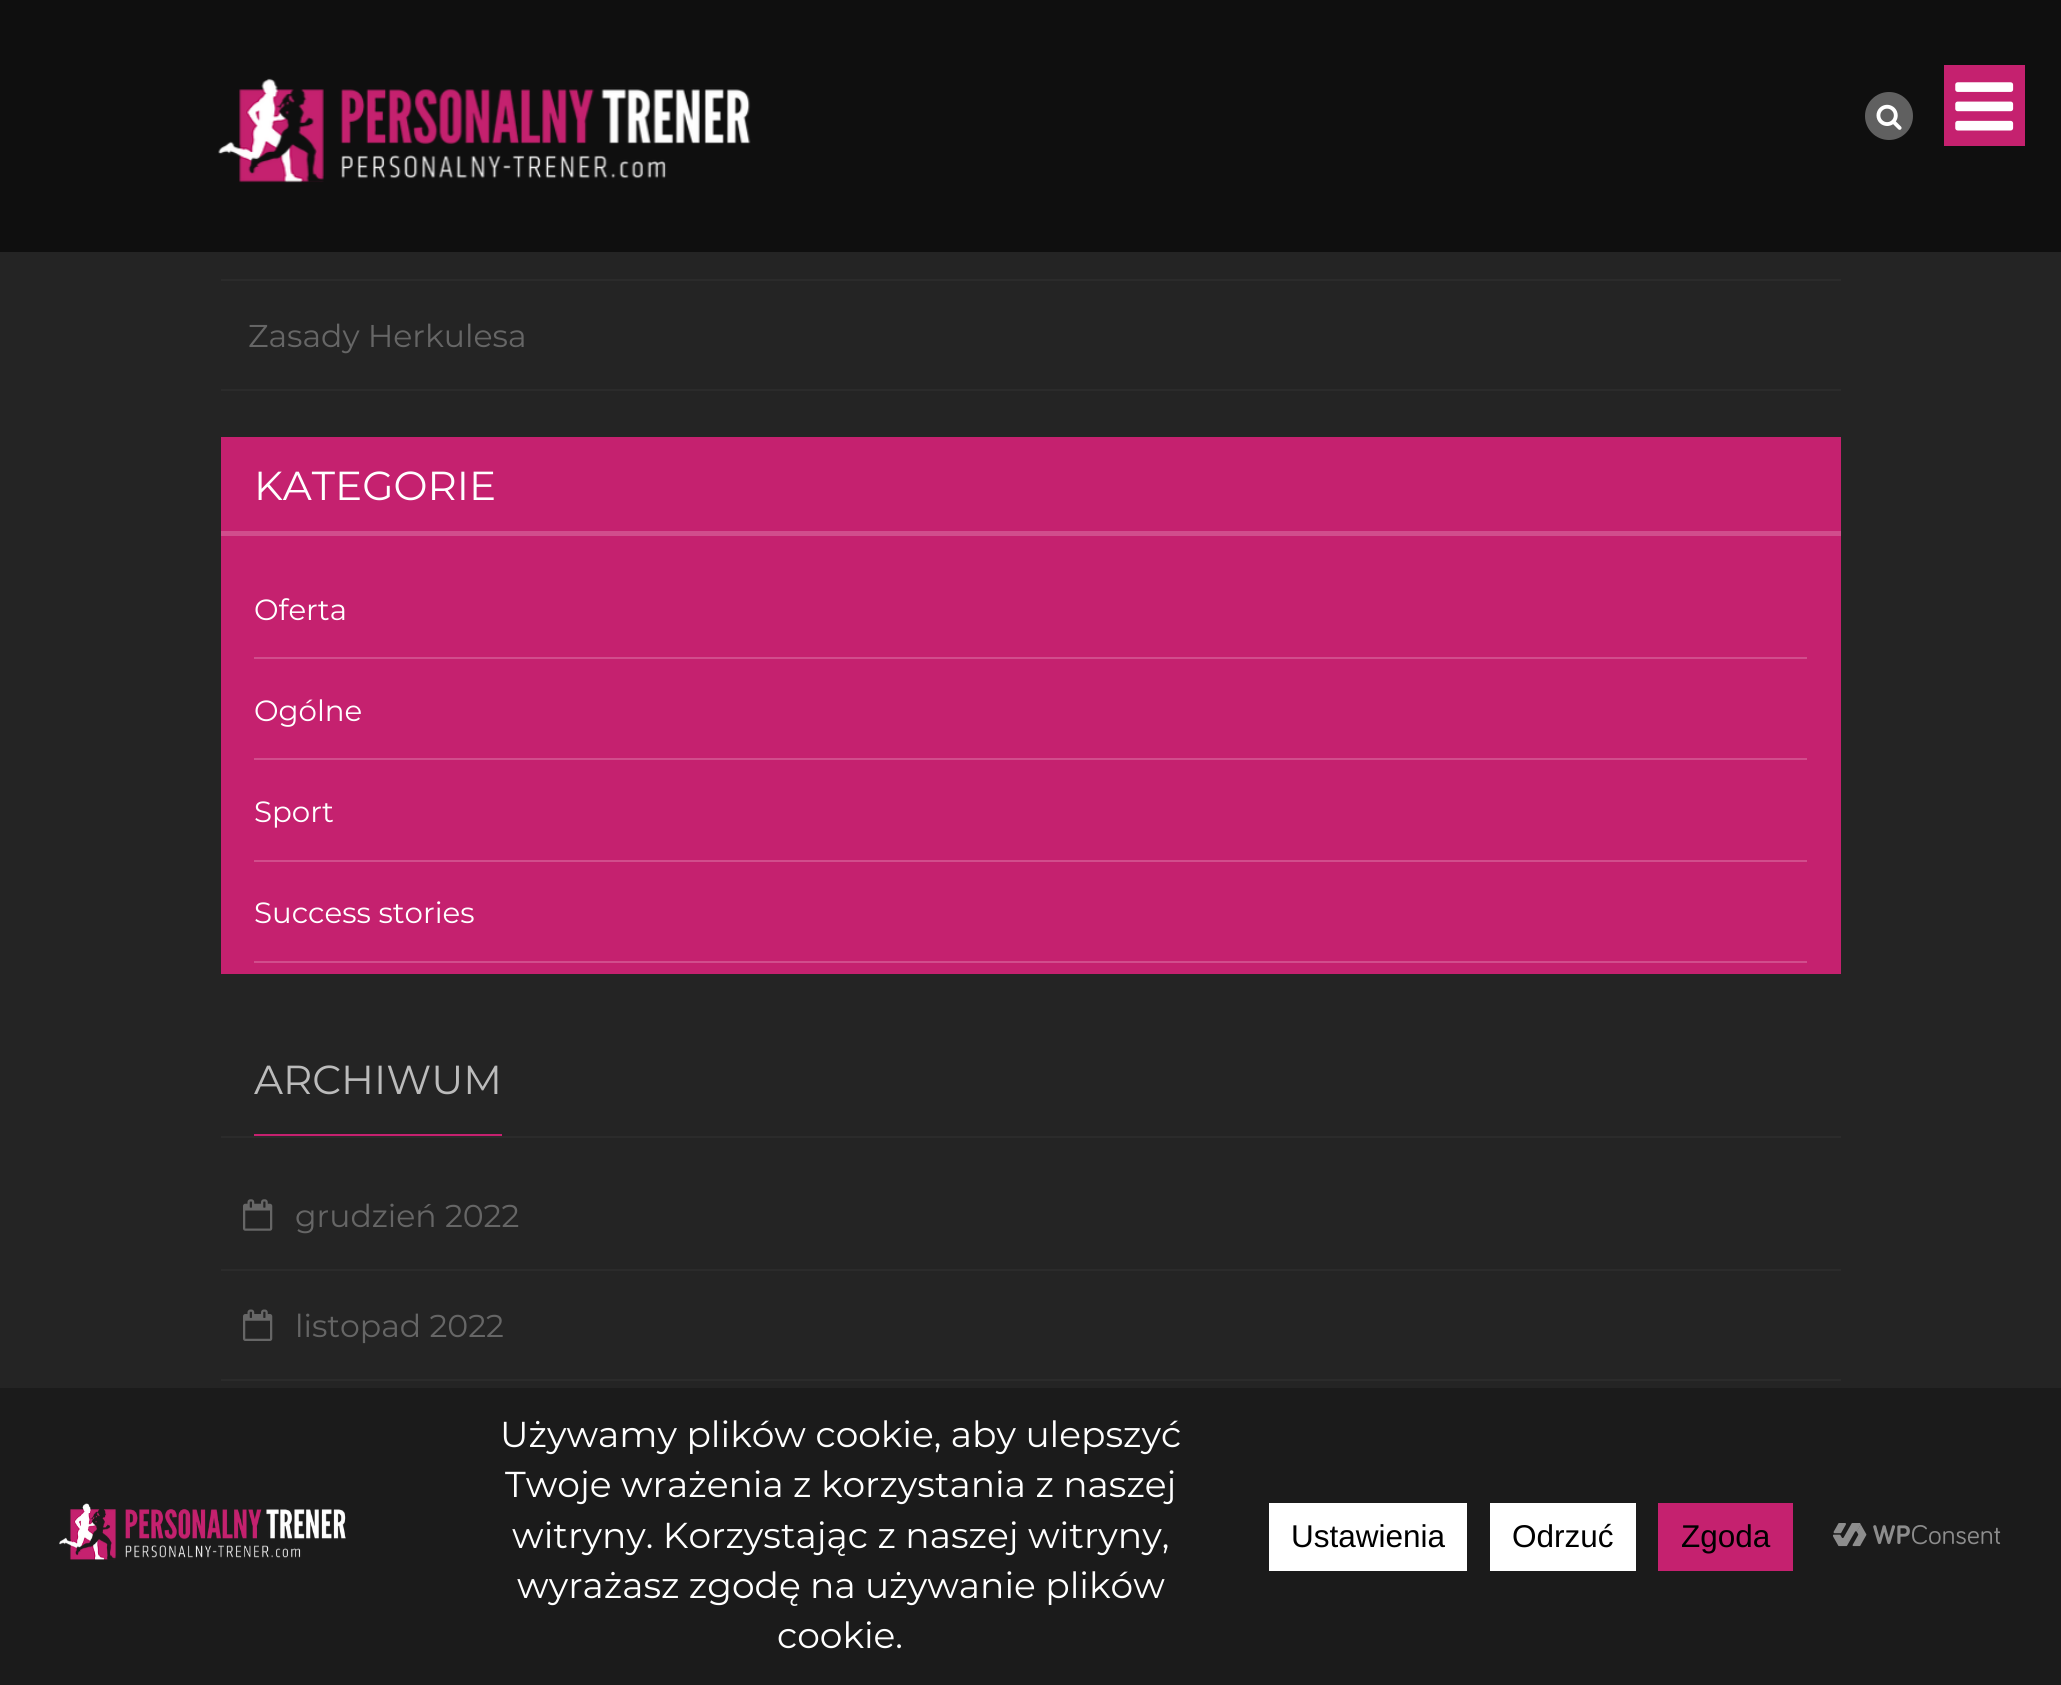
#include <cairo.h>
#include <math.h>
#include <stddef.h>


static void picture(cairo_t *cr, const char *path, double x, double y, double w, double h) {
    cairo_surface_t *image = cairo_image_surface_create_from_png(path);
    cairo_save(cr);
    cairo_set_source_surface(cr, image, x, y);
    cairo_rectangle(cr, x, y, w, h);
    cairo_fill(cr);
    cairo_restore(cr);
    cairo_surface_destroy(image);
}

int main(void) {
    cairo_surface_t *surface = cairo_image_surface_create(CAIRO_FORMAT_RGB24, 2061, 1685);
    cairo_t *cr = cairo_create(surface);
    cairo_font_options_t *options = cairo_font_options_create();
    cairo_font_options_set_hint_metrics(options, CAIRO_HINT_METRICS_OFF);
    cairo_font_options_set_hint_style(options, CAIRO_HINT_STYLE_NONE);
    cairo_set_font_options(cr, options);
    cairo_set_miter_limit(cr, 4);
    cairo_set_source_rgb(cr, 0.141, 0.141, 0.141);
    cairo_paint(cr);
    cairo_set_source_rgb(cr, 0.059, 0.059, 0.059);
    cairo_rectangle(cr, 0, 0, 2061, 252);
    cairo_fill(cr);
    picture(cr, "img1.png", 218, 78, 533, 105);
    cairo_set_source_rgb(cr, 0.376, 0.376, 0.376);
    cairo_arc(cr, 1889, 116, 24, 0, 2 * M_PI);
    cairo_fill(cr);
    picture(cr, "img2.png", 1876, 104, 26, 26);
    cairo_set_source_rgb(cr, 0.773, 0.129, 0.435);
    cairo_rectangle(cr, 1944, 65, 81, 81);
    cairo_fill(cr);
    picture(cr, "img3.png", 1955, 82, 59, 49);
    cairo_set_source_rgb(cr, 0.169, 0.169, 0.169);
    cairo_rectangle(cr, 221, 279, 1620, 2);
    cairo_fill(cr);
    cairo_rectangle(cr, 221, 389, 1620, 2);
    cairo_fill(cr);
    cairo_select_font_face(cr, "Montserrat", CAIRO_FONT_SLANT_NORMAL, CAIRO_FONT_WEIGHT_NORMAL);
    cairo_set_font_size(cr, 31.5);
    cairo_set_source_rgb(cr, 0.4, 0.4, 0.4);
    cairo_move_to(cr, 248, 347);
    cairo_show_text(cr, "Zasady Herkulesa");
    cairo_set_source_rgb(cr, 0.773, 0.129, 0.435);
    cairo_rectangle(cr, 221, 437, 1620, 537);
    cairo_fill(cr);
    cairo_set_source_rgb(cr, 0.82, 0.302, 0.549);
    cairo_rectangle(cr, 221, 531, 1620, 5);
    cairo_fill(cr);
    cairo_set_font_size(cr, 40.5);
    cairo_set_source_rgb(cr, 1, 1, 1);
    cairo_move_to(cr, 254, 500);
    cairo_show_text(cr, "KATEGORIE");
    cairo_set_source_rgb(cr, 0.82, 0.302, 0.549);
    cairo_rectangle(cr, 254, 657, 1553, 2);
    cairo_fill(cr);
    cairo_set_font_size(cr, 29.25);
    cairo_set_source_rgb(cr, 1, 1, 1);
    cairo_move_to(cr, 254, 620);
    cairo_show_text(cr, "Oferta");
    cairo_set_source_rgb(cr, 0.82, 0.302, 0.549);
    cairo_rectangle(cr, 254, 758, 1553, 2);
    cairo_fill(cr);
    cairo_set_source_rgb(cr, 1, 1, 1);
    cairo_move_to(cr, 254, 721);
    cairo_show_text(cr, "Ogólne");
    cairo_set_source_rgb(cr, 0.82, 0.302, 0.549);
    cairo_rectangle(cr, 254, 860, 1553, 2);
    cairo_fill(cr);
    cairo_set_source_rgb(cr, 1, 1, 1);
    cairo_move_to(cr, 254, 822);
    cairo_show_text(cr, "Sport");
    cairo_set_source_rgb(cr, 0.82, 0.302, 0.549);
    cairo_rectangle(cr, 254, 961, 1553, 2);
    cairo_fill(cr);
    cairo_set_source_rgb(cr, 1, 1, 1);
    cairo_move_to(cr, 254, 923);
    cairo_show_text(cr, "Success stories");
    cairo_set_source_rgb(cr, 0.169, 0.169, 0.169);
    cairo_rectangle(cr, 221, 1136, 1620, 2);
    cairo_fill(cr);
    cairo_set_font_size(cr, 40.5);
    cairo_set_source_rgb(cr, 0.733, 0.733, 0.733);
    cairo_move_to(cr, 254, 1094);
    cairo_show_text(cr, "ARCHIWUM");
    cairo_set_source_rgb(cr, 0.773, 0.129, 0.435);
    cairo_rectangle(cr, 254, 1134, 248, 2);
    cairo_fill(cr);
    cairo_set_source_rgb(cr, 0.169, 0.169, 0.169);
    cairo_rectangle(cr, 221, 1269, 1620, 2);
    cairo_fill(cr);
    picture(cr, "img4.png", 243, 1199, 30, 32);
    cairo_set_font_size(cr, 31.5);
    cairo_set_source_rgb(cr, 0.4, 0.4, 0.4);
    cairo_move_to(cr, 295, 1227);
    cairo_show_text(cr, "grudzień 2022");
    cairo_set_source_rgb(cr, 0.169, 0.169, 0.169);
    cairo_rectangle(cr, 221, 1379, 1620, 2);
    cairo_fill(cr);
    picture(cr, "img5.png", 243, 1309, 30, 32);
    cairo_set_source_rgb(cr, 0.4, 0.4, 0.4);
    cairo_move_to(cr, 295, 1337);
    cairo_show_text(cr, "listopad 2022");
    cairo_set_source_rgb(cr, 0.106, 0.106, 0.106);
    cairo_rectangle(cr, 0, 1388, 2061, 297);
    cairo_fill(cr);
    picture(cr, "img6.png", 59, 1503, 287, 57);
    cairo_set_font_size(cr, 36);
    cairo_set_source_rgb(cr, 1, 1, 1);
    cairo_move_to(cr, 500, 1447);
    cairo_show_text(cr, "Używamy plików cookie, aby ulepszyć");
    cairo_move_to(cr, 505, 1497);
    cairo_show_text(cr, "Twoje wrażenia z korzystania z naszej");
    cairo_move_to(cr, 512, 1548);
    cairo_show_text(cr, "witryny. Korzystając z naszej witryny,");
    cairo_move_to(cr, 517, 1598);
    cairo_show_text(cr, "wyrażasz zgodę na używanie plików");
    cairo_move_to(cr, 777, 1648);
    cairo_show_text(cr, "cookie.");
    cairo_rectangle(cr, 1269, 1503, 198, 68);
    cairo_fill(cr);
    cairo_select_font_face(cr, "Liberation Sans", CAIRO_FONT_SLANT_NORMAL, CAIRO_FONT_WEIGHT_NORMAL);
    cairo_set_font_size(cr, 31.5);
    cairo_set_source_rgb(cr, 0, 0, 0);
    cairo_move_to(cr, 1291, 1547);
    cairo_show_text(cr, "Ustawienia");
    cairo_set_source_rgb(cr, 1, 1, 1);
    cairo_rectangle(cr, 1490, 1503, 146, 68);
    cairo_fill(cr);
    cairo_set_source_rgb(cr, 0, 0, 0);
    cairo_move_to(cr, 1512, 1547);
    cairo_show_text(cr, "Odrzuć");
    cairo_set_source_rgb(cr, 0.773, 0.129, 0.435);
    cairo_rectangle(cr, 1658, 1503, 135, 68);
    cairo_fill(cr);
    cairo_set_source_rgb(cr, 0, 0, 0);
    cairo_move_to(cr, 1681, 1547);
    cairo_show_text(cr, "Zgoda");
    picture(cr, "img7.png", 1833, 1523, 168, 24);
    cairo_surface_write_to_png(surface, "page.png");
    cairo_font_options_destroy(options);
    cairo_destroy(cr);
    cairo_surface_destroy(surface);
    return 0;
}
